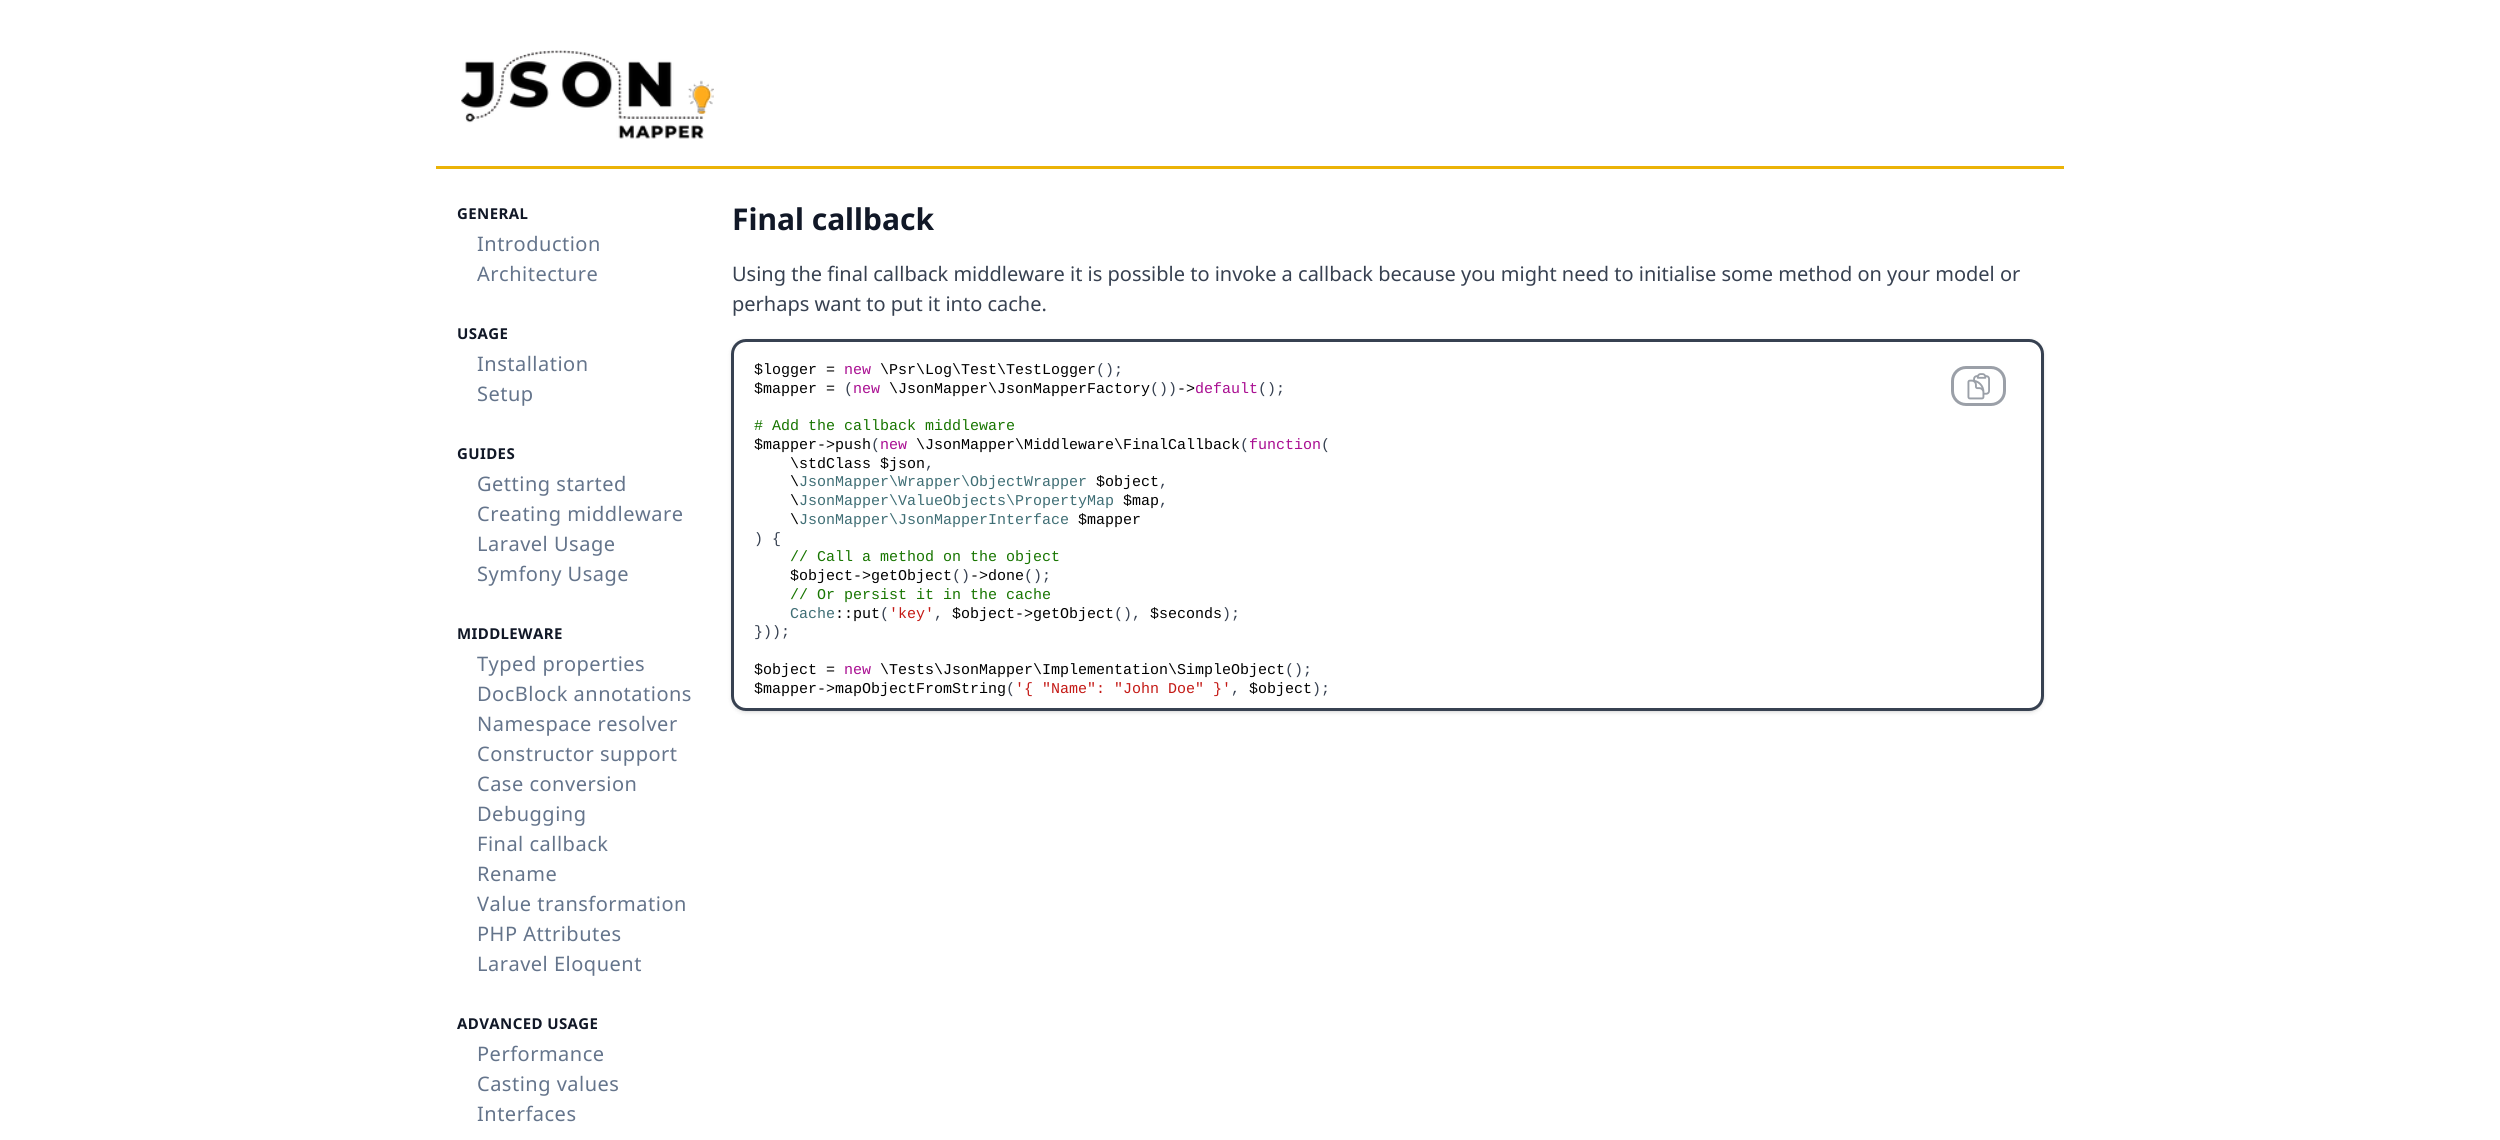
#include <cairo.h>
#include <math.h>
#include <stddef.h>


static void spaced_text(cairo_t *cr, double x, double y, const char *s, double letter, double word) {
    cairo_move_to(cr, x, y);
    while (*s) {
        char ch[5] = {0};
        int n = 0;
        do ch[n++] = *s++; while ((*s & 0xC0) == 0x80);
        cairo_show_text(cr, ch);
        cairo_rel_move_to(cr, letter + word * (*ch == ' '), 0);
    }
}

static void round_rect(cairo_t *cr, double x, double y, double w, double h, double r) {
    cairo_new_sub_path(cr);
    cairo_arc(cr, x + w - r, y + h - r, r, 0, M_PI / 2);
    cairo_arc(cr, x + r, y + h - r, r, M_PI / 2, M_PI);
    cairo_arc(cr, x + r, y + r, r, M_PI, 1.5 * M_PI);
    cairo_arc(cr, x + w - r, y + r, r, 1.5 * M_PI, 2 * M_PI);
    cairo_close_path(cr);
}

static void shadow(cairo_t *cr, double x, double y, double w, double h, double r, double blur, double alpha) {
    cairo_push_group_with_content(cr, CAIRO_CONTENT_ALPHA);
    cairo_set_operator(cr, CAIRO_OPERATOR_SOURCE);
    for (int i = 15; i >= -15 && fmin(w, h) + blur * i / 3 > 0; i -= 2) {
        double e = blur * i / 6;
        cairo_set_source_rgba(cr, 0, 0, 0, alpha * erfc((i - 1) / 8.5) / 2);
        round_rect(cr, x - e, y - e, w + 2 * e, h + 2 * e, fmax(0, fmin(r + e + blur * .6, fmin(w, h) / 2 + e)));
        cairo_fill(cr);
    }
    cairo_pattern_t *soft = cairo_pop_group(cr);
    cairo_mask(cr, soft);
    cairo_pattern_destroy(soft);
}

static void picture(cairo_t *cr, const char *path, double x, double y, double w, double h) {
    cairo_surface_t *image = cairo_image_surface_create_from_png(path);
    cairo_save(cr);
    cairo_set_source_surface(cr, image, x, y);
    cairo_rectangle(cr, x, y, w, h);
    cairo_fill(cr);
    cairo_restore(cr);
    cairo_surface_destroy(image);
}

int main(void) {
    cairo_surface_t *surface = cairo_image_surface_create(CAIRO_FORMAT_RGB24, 2500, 1140);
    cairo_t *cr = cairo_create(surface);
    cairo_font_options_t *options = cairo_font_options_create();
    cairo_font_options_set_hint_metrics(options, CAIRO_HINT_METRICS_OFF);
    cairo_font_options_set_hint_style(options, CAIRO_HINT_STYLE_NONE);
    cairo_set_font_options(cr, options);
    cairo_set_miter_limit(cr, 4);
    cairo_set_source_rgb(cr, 1, 1, 1);
    cairo_paint(cr);
    cairo_set_source_rgb(cr, 0.918, 0.702, 0.031);
    cairo_rectangle(cr, 436, 166, 1628, 3);
    cairo_fill(cr);
    picture(cr, "img1.png", 461, 50, 253, 89);
    cairo_select_font_face(cr, "Noto Sans", CAIRO_FONT_SLANT_NORMAL, CAIRO_FONT_WEIGHT_BOLD);
    cairo_set_font_size(cr, 15);
    cairo_set_source_rgb(cr, 0.067, 0.094, 0.153);
    spaced_text(cr, 457, 219, "GENERAL", 0.4, 0);
    cairo_select_font_face(cr, "Noto Sans", CAIRO_FONT_SLANT_NORMAL, CAIRO_FONT_WEIGHT_NORMAL);
    cairo_set_font_size(cr, 20);
    cairo_set_source_rgb(cr, 0.392, 0.455, 0.545);
    spaced_text(cr, 477, 251, "Introduction", 0.5, 0);
    spaced_text(cr, 477, 281, "Architecture", 0.5, 0);
    cairo_select_font_face(cr, "Noto Sans", CAIRO_FONT_SLANT_NORMAL, CAIRO_FONT_WEIGHT_BOLD);
    cairo_set_font_size(cr, 15);
    cairo_set_source_rgb(cr, 0.067, 0.094, 0.153);
    spaced_text(cr, 457, 339, "USAGE", 0.4, 0);
    cairo_select_font_face(cr, "Noto Sans", CAIRO_FONT_SLANT_NORMAL, CAIRO_FONT_WEIGHT_NORMAL);
    cairo_set_font_size(cr, 20);
    cairo_set_source_rgb(cr, 0.392, 0.455, 0.545);
    spaced_text(cr, 477, 371, "Installation", 0.5, 0);
    spaced_text(cr, 477, 401, "Setup", 0.5, 0);
    cairo_select_font_face(cr, "Noto Sans", CAIRO_FONT_SLANT_NORMAL, CAIRO_FONT_WEIGHT_BOLD);
    cairo_set_font_size(cr, 15);
    cairo_set_source_rgb(cr, 0.067, 0.094, 0.153);
    spaced_text(cr, 457, 459, "GUIDES", 0.4, 0);
    cairo_select_font_face(cr, "Noto Sans", CAIRO_FONT_SLANT_NORMAL, CAIRO_FONT_WEIGHT_NORMAL);
    cairo_set_font_size(cr, 20);
    cairo_set_source_rgb(cr, 0.392, 0.455, 0.545);
    spaced_text(cr, 477, 491, "Getting started", 0.5, 0);
    spaced_text(cr, 477, 521, "Creating middleware", 0.5, 0);
    spaced_text(cr, 477, 551, "Laravel Usage", 0.5, 0);
    spaced_text(cr, 477, 581, "Symfony Usage", 0.5, 0);
    cairo_select_font_face(cr, "Noto Sans", CAIRO_FONT_SLANT_NORMAL, CAIRO_FONT_WEIGHT_BOLD);
    cairo_set_font_size(cr, 15);
    cairo_set_source_rgb(cr, 0.067, 0.094, 0.153);
    spaced_text(cr, 457, 639, "MIDDLEWARE", 0.4, 0);
    cairo_select_font_face(cr, "Noto Sans", CAIRO_FONT_SLANT_NORMAL, CAIRO_FONT_WEIGHT_NORMAL);
    cairo_set_font_size(cr, 20);
    cairo_set_source_rgb(cr, 0.392, 0.455, 0.545);
    spaced_text(cr, 477, 671, "Typed properties", 0.5, 0);
    spaced_text(cr, 477, 701, "DocBlock annotations", 0.5, 0);
    spaced_text(cr, 477, 731, "Namespace resolver", 0.5, 0);
    spaced_text(cr, 477, 761, "Constructor support", 0.5, 0);
    spaced_text(cr, 477, 791, "Case conversion", 0.5, 0);
    spaced_text(cr, 477, 821, "Debugging", 0.5, 0);
    spaced_text(cr, 477, 851, "Final callback", 0.5, 0);
    spaced_text(cr, 477, 881, "Rename", 0.5, 0);
    spaced_text(cr, 477, 911, "Value transformation", 0.5, 0);
    spaced_text(cr, 477, 941, "PHP Attributes", 0.5, 0);
    spaced_text(cr, 477, 971, "Laravel Eloquent", 0.5, 0);
    cairo_select_font_face(cr, "Noto Sans", CAIRO_FONT_SLANT_NORMAL, CAIRO_FONT_WEIGHT_BOLD);
    cairo_set_font_size(cr, 15);
    cairo_set_source_rgb(cr, 0.067, 0.094, 0.153);
    spaced_text(cr, 457, 1029, "ADVANCED USAGE", 0.4, 0);
    cairo_select_font_face(cr, "Noto Sans", CAIRO_FONT_SLANT_NORMAL, CAIRO_FONT_WEIGHT_NORMAL);
    cairo_set_font_size(cr, 20);
    cairo_set_source_rgb(cr, 0.392, 0.455, 0.545);
    spaced_text(cr, 477, 1061, "Performance", 0.5, 0);
    spaced_text(cr, 477, 1091, "Casting values", 0.5, 0);
    spaced_text(cr, 477, 1121, "Interfaces", 0.5, 0);
    cairo_select_font_face(cr, "Noto Sans", CAIRO_FONT_SLANT_NORMAL, CAIRO_FONT_WEIGHT_BOLD);
    cairo_set_font_size(cr, 30);
    cairo_set_source_rgb(cr, 0.067, 0.094, 0.153);
    cairo_move_to(cr, 732, 230);
    cairo_show_text(cr, "Final callback");
    cairo_select_font_face(cr, "Noto Sans", CAIRO_FONT_SLANT_NORMAL, CAIRO_FONT_WEIGHT_NORMAL);
    cairo_set_font_size(cr, 20);
    cairo_set_source_rgb(cr, 0.216, 0.255, 0.318);
    cairo_move_to(cr, 732, 281);
    cairo_show_text(cr, "Using the final callback middleware it is possible to invoke a callback because you might need to initialise some method on your model or");
    cairo_move_to(cr, 732, 311);
    cairo_show_text(cr, "perhaps want to put it into cache.");
    cairo_set_source_rgb(cr, 0, 0, 0);
    shadow(cr, 733, 341, 1310, 370, 14, 1, 0.1);
    shadow(cr, 731, 340, 1313, 373, 15, 2, 0.1);
    cairo_set_source_rgb(cr, 1, 1, 1);
    round_rect(cr, 732.5, 340.5, 1310, 369, 13.5);
    cairo_fill_preserve(cr);
    cairo_set_source_rgb(cr, 0.216, 0.255, 0.318);
    cairo_set_line_width(cr, 3);
    cairo_stroke(cr);
    cairo_select_font_face(cr, "Liberation Mono", CAIRO_FONT_SLANT_NORMAL, CAIRO_FONT_WEIGHT_NORMAL);
    cairo_set_font_size(cr, 15);
    cairo_set_source_rgb(cr, 0, 0, 0);
    cairo_move_to(cr, 754, 374);
    cairo_show_text(cr, "$logger =");
    cairo_set_source_rgb(cr, 0.663, 0.051, 0.569);
    cairo_move_to(cr, 844, 374);
    cairo_show_text(cr, "new");
    cairo_set_source_rgb(cr, 0, 0, 0);
    cairo_move_to(cr, 880, 374);
    cairo_show_text(cr, "\\Psr\\Log\\Test\\TestLogger");
    cairo_set_source_rgb(cr, 0.216, 0.255, 0.318);
    cairo_move_to(cr, 1096, 374);
    cairo_show_text(cr, "();");
    round_rect(cr, 1952.5, 367.5, 52, 37, 13.5);
    cairo_set_source_rgb(cr, 0.608, 0.627, 0.659);
    cairo_stroke(cr);
    picture(cr, "img2.png", 1967, 373, 23, 27);
    cairo_set_source_rgb(cr, 0, 0, 0);
    cairo_move_to(cr, 754, 393);
    cairo_show_text(cr, "$mapper =");
    cairo_set_source_rgb(cr, 0.216, 0.255, 0.318);
    cairo_move_to(cr, 844, 393);
    cairo_show_text(cr, "(");
    cairo_set_source_rgb(cr, 0.663, 0.051, 0.569);
    cairo_move_to(cr, 853, 393);
    cairo_show_text(cr, "new");
    cairo_set_source_rgb(cr, 0, 0, 0);
    cairo_move_to(cr, 889, 393);
    cairo_show_text(cr, "\\JsonMapper\\JsonMapperFactory");
    cairo_set_source_rgb(cr, 0.216, 0.255, 0.318);
    cairo_move_to(cr, 1150, 393);
    cairo_show_text(cr, "())");
    cairo_set_source_rgb(cr, 0, 0, 0);
    cairo_move_to(cr, 1177, 393);
    cairo_show_text(cr, "->");
    cairo_set_source_rgb(cr, 0.663, 0.051, 0.569);
    cairo_move_to(cr, 1195, 393);
    cairo_show_text(cr, "default");
    cairo_set_source_rgb(cr, 0.216, 0.255, 0.318);
    cairo_move_to(cr, 1258, 393);
    cairo_show_text(cr, "();");
    cairo_set_source_rgb(cr, 0.09, 0.459, 0);
    cairo_move_to(cr, 754, 430);
    cairo_show_text(cr, "# Add the callback middleware");
    cairo_set_source_rgb(cr, 0, 0, 0);
    cairo_move_to(cr, 754, 449);
    cairo_show_text(cr, "$mapper->push");
    cairo_set_source_rgb(cr, 0.216, 0.255, 0.318);
    cairo_move_to(cr, 871, 449);
    cairo_show_text(cr, "(");
    cairo_set_source_rgb(cr, 0.663, 0.051, 0.569);
    cairo_move_to(cr, 880, 449);
    cairo_show_text(cr, "new");
    cairo_set_source_rgb(cr, 0, 0, 0);
    cairo_move_to(cr, 916, 449);
    cairo_show_text(cr, "\\JsonMapper\\Middleware\\FinalCallback");
    cairo_set_source_rgb(cr, 0.216, 0.255, 0.318);
    cairo_move_to(cr, 1240, 449);
    cairo_show_text(cr, "(");
    cairo_set_source_rgb(cr, 0.663, 0.051, 0.569);
    cairo_move_to(cr, 1249, 449);
    cairo_show_text(cr, "function");
    cairo_set_source_rgb(cr, 0.216, 0.255, 0.318);
    cairo_move_to(cr, 1321, 449);
    cairo_show_text(cr, "(");
    cairo_set_source_rgb(cr, 0, 0, 0);
    cairo_move_to(cr, 790, 468);
    cairo_show_text(cr, "\\stdClass $json");
    cairo_set_source_rgb(cr, 0.216, 0.255, 0.318);
    cairo_move_to(cr, 925, 468);
    cairo_show_text(cr, ",");
    cairo_set_source_rgb(cr, 0, 0, 0);
    cairo_move_to(cr, 790, 486);
    cairo_show_text(cr, "\\");
    cairo_set_source_rgb(cr, 0.247, 0.431, 0.459);
    cairo_move_to(cr, 799, 486);
    cairo_show_text(cr, "JsonMapper\\Wrapper\\ObjectWrapper");
    cairo_set_source_rgb(cr, 0, 0, 0);
    cairo_move_to(cr, 1096, 486);
    cairo_show_text(cr, "$object");
    cairo_set_source_rgb(cr, 0.216, 0.255, 0.318);
    cairo_move_to(cr, 1159, 486);
    cairo_show_text(cr, ",");
    cairo_set_source_rgb(cr, 0, 0, 0);
    cairo_move_to(cr, 790, 505);
    cairo_show_text(cr, "\\");
    cairo_set_source_rgb(cr, 0.247, 0.431, 0.459);
    cairo_move_to(cr, 799, 505);
    cairo_show_text(cr, "JsonMapper\\ValueObjects\\PropertyMap");
    cairo_set_source_rgb(cr, 0, 0, 0);
    cairo_move_to(cr, 1123, 505);
    cairo_show_text(cr, "$map");
    cairo_set_source_rgb(cr, 0.216, 0.255, 0.318);
    cairo_move_to(cr, 1159, 505);
    cairo_show_text(cr, ",");
    cairo_set_source_rgb(cr, 0, 0, 0);
    cairo_move_to(cr, 790, 524);
    cairo_show_text(cr, "\\");
    cairo_set_source_rgb(cr, 0.247, 0.431, 0.459);
    cairo_move_to(cr, 799, 524);
    cairo_show_text(cr, "JsonMapper\\JsonMapperInterface");
    cairo_set_source_rgb(cr, 0, 0, 0);
    cairo_move_to(cr, 1078, 524);
    cairo_show_text(cr, "$mapper");
    cairo_set_source_rgb(cr, 0.216, 0.255, 0.318);
    cairo_move_to(cr, 754, 543);
    cairo_show_text(cr, ") {");
    cairo_set_source_rgb(cr, 0.09, 0.459, 0);
    cairo_move_to(cr, 790, 561);
    cairo_show_text(cr, "// Call a method on the object");
    cairo_set_source_rgb(cr, 0, 0, 0);
    cairo_move_to(cr, 790, 580);
    cairo_show_text(cr, "$object->getObject");
    cairo_set_source_rgb(cr, 0.216, 0.255, 0.318);
    cairo_move_to(cr, 952, 580);
    cairo_show_text(cr, "()");
    cairo_set_source_rgb(cr, 0, 0, 0);
    cairo_move_to(cr, 970, 580);
    cairo_show_text(cr, "->done");
    cairo_set_source_rgb(cr, 0.216, 0.255, 0.318);
    cairo_move_to(cr, 1024, 580);
    cairo_show_text(cr, "();");
    cairo_set_source_rgb(cr, 0.09, 0.459, 0);
    cairo_move_to(cr, 790, 599);
    cairo_show_text(cr, "// Or persist it in the cache");
    cairo_set_source_rgb(cr, 0.247, 0.431, 0.459);
    cairo_move_to(cr, 790, 618);
    cairo_show_text(cr, "Cache");
    cairo_set_source_rgb(cr, 0, 0, 0);
    cairo_move_to(cr, 835, 618);
    cairo_show_text(cr, "::put");
    cairo_set_source_rgb(cr, 0.216, 0.255, 0.318);
    cairo_move_to(cr, 880, 618);
    cairo_show_text(cr, "(");
    cairo_set_source_rgb(cr, 0.769, 0.102, 0.086);
    cairo_move_to(cr, 889, 618);
    cairo_show_text(cr, "'key'");
    cairo_set_source_rgb(cr, 0.216, 0.255, 0.318);
    cairo_move_to(cr, 934, 618);
    cairo_show_text(cr, ",");
    cairo_set_source_rgb(cr, 0, 0, 0);
    cairo_move_to(cr, 952, 618);
    cairo_show_text(cr, "$object->getObject");
    cairo_set_source_rgb(cr, 0.216, 0.255, 0.318);
    cairo_move_to(cr, 1114, 618);
    cairo_show_text(cr, "(),");
    cairo_set_source_rgb(cr, 0, 0, 0);
    cairo_move_to(cr, 1150, 618);
    cairo_show_text(cr, "$seconds");
    cairo_set_source_rgb(cr, 0.216, 0.255, 0.318);
    cairo_move_to(cr, 1222, 618);
    cairo_show_text(cr, ");");
    cairo_move_to(cr, 754, 636);
    cairo_show_text(cr, "}));");
    cairo_set_source_rgb(cr, 0, 0, 0);
    cairo_move_to(cr, 754, 674);
    cairo_show_text(cr, "$object =");
    cairo_set_source_rgb(cr, 0.663, 0.051, 0.569);
    cairo_move_to(cr, 844, 674);
    cairo_show_text(cr, "new");
    cairo_set_source_rgb(cr, 0, 0, 0);
    cairo_move_to(cr, 880, 674);
    cairo_show_text(cr, "\\Tests\\JsonMapper\\Implementation\\SimpleObject");
    cairo_set_source_rgb(cr, 0.216, 0.255, 0.318);
    cairo_move_to(cr, 1285, 674);
    cairo_show_text(cr, "();");
    cairo_set_source_rgb(cr, 0, 0, 0);
    cairo_move_to(cr, 754, 693);
    cairo_show_text(cr, "$mapper->mapObjectFromString");
    cairo_set_source_rgb(cr, 0.216, 0.255, 0.318);
    cairo_move_to(cr, 1006, 693);
    cairo_show_text(cr, "(");
    cairo_set_source_rgb(cr, 0.769, 0.102, 0.086);
    cairo_move_to(cr, 1015, 693);
    cairo_show_text(cr, "'{ \"Name\": \"John Doe\" }'");
    cairo_set_source_rgb(cr, 0.216, 0.255, 0.318);
    cairo_move_to(cr, 1231, 693);
    cairo_show_text(cr, ",");
    cairo_set_source_rgb(cr, 0, 0, 0);
    cairo_move_to(cr, 1249, 693);
    cairo_show_text(cr, "$object");
    cairo_set_source_rgb(cr, 0.216, 0.255, 0.318);
    cairo_move_to(cr, 1312, 693);
    cairo_show_text(cr, ");");
    cairo_surface_write_to_png(surface, "page.png");
    cairo_font_options_destroy(options);
    cairo_destroy(cr);
    cairo_surface_destroy(surface);
    return 0;
}
